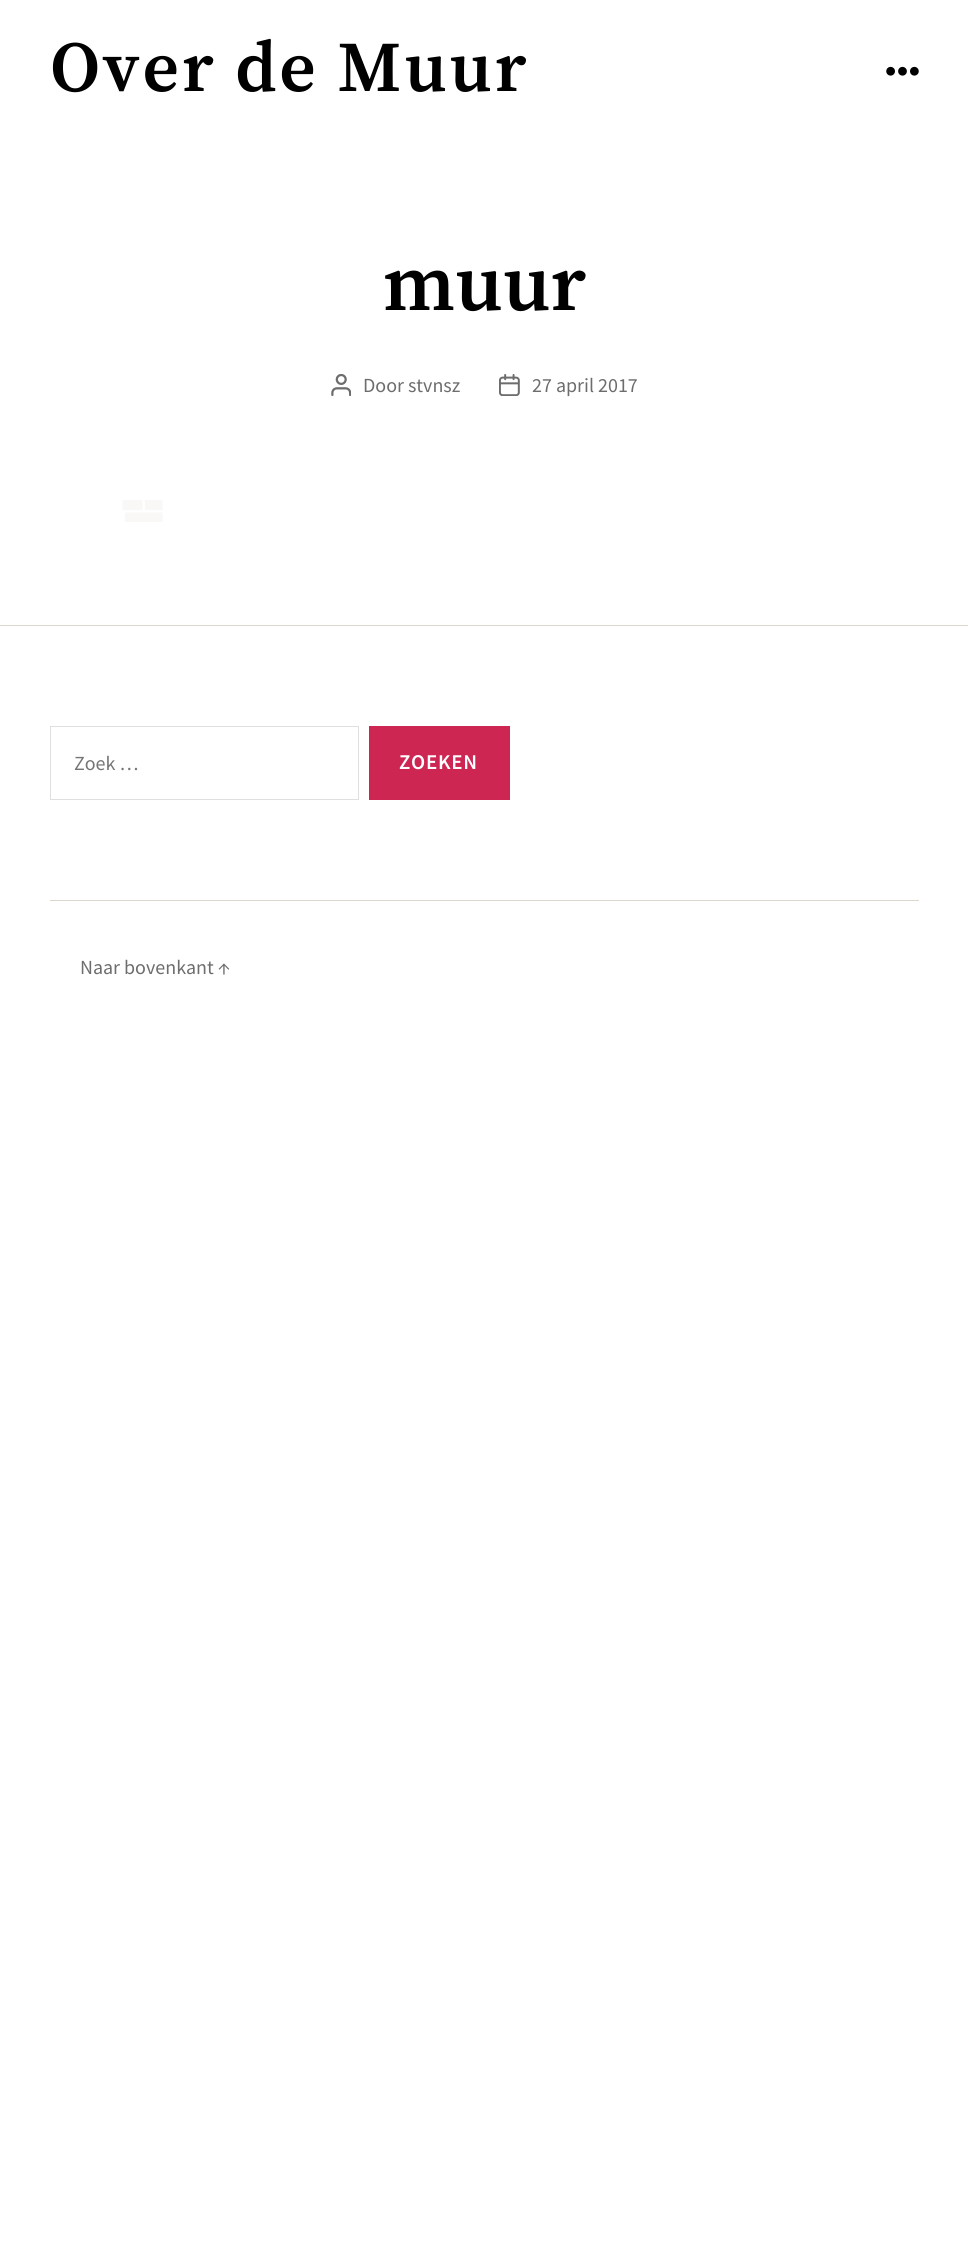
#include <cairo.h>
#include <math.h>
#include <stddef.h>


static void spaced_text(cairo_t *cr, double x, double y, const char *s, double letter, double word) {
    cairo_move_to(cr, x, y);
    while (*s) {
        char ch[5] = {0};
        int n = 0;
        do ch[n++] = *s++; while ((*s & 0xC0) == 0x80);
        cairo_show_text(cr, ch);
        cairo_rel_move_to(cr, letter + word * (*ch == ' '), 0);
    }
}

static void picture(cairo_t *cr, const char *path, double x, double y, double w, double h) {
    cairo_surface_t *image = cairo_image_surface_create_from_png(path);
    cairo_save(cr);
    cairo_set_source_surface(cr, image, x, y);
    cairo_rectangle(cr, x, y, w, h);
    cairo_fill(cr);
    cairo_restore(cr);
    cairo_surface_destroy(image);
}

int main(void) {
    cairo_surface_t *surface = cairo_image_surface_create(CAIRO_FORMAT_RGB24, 968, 2268);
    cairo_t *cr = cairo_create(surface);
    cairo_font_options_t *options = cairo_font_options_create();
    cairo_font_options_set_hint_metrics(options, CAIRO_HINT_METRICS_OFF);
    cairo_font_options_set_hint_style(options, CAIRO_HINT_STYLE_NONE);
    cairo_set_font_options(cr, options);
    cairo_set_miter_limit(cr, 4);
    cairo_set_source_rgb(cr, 1, 1, 1);
    cairo_paint(cr);
    cairo_select_font_face(cr, "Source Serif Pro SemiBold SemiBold", CAIRO_FONT_SLANT_NORMAL, CAIRO_FONT_WEIGHT_NORMAL);
    cairo_set_font_size(cr, 71.25);
    cairo_set_source_rgb(cr, 0, 0, 0);
    spaced_text(cr, 50, 91, "Over de Muur", 2.8, 0);
    picture(cr, "img1.png", 886, 66, 33, 10);
    cairo_set_font_size(cr, 80);
    cairo_move_to(cr, 383, 310);
    cairo_show_text(cr, "muur");
    picture(cr, "img2.png", 331, 374, 20, 22);
    cairo_select_font_face(cr, "Source Sans Pro", CAIRO_FONT_SLANT_NORMAL, CAIRO_FONT_WEIGHT_NORMAL);
    cairo_set_font_size(cr, 20);
    cairo_set_source_rgb(cr, 0.427, 0.427, 0.427);
    cairo_move_to(cr, 363, 392);
    cairo_show_text(cr, "Door stvnsz");
    picture(cr, "img3.png", 499, 374, 21, 22);
    cairo_move_to(cr, 532, 392);
    cairo_show_text(cr, "27 april 2017");
    picture(cr, "img4.png", 122, 500, 41, 22);
    cairo_set_source_rgb(cr, 0.863, 0.843, 0.792);
    cairo_rectangle(cr, 0, 625, 968, 1);
    cairo_fill(cr);
    cairo_rectangle(cr, 50, 900, 869, 1);
    cairo_fill(cr);
    cairo_rectangle(cr, 50.5, 726.5, 308, 73);
    cairo_set_source_rgb(cr, 0.871, 0.875, 0.875);
    cairo_set_line_width(cr, 1);
    cairo_stroke(cr);
    cairo_set_source_rgb(cr, 0.459, 0.459, 0.459);
    cairo_move_to(cr, 74, 770);
    cairo_show_text(cr, "Zoek …");
    cairo_set_source_rgb(cr, 0.804, 0.149, 0.325);
    cairo_rectangle(cr, 369, 726, 141, 74);
    cairo_fill(cr);
    cairo_select_font_face(cr, "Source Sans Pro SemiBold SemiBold", CAIRO_FONT_SLANT_NORMAL, CAIRO_FONT_WEIGHT_NORMAL);
    cairo_set_font_size(cr, 21);
    cairo_set_source_rgb(cr, 1, 1, 1);
    spaced_text(cr, 399, 769, "ZOEKEN", 0.75, 0);
    cairo_select_font_face(cr, "Source Sans Pro", CAIRO_FONT_SLANT_NORMAL, CAIRO_FONT_WEIGHT_NORMAL);
    cairo_set_font_size(cr, 20);
    cairo_set_source_rgb(cr, 0.427, 0.427, 0.427);
    cairo_move_to(cr, 80, 974);
    cairo_show_text(cr, "Naar bovenkant ↑");
    cairo_surface_write_to_png(surface, "page.png");
    cairo_font_options_destroy(options);
    cairo_destroy(cr);
    cairo_surface_destroy(surface);
    return 0;
}
